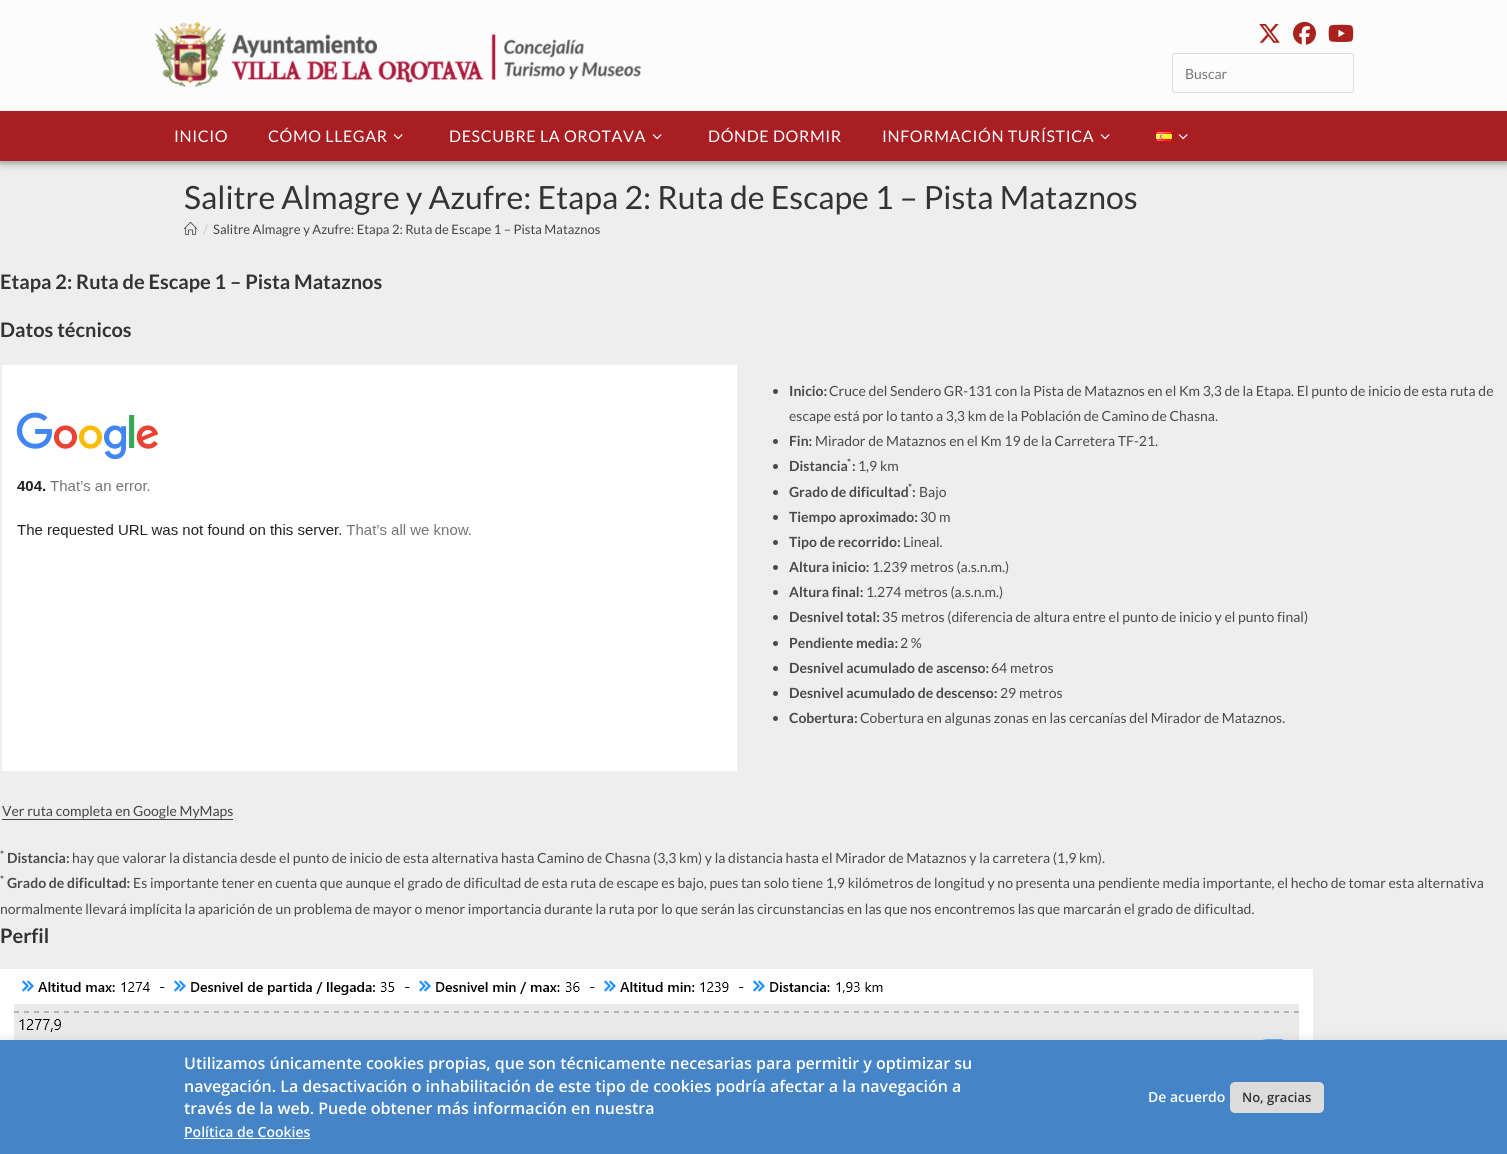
#include <cairo.h>
#include <math.h>
#include <stddef.h>


static void spaced_text(cairo_t *cr, double x, double y, const char *s, double letter, double word) {
    cairo_move_to(cr, x, y);
    while (*s) {
        char ch[5] = {0};
        int n = 0;
        do ch[n++] = *s++; while ((*s & 0xC0) == 0x80);
        cairo_show_text(cr, ch);
        cairo_rel_move_to(cr, letter + word * (*ch == ' '), 0);
    }
}

static void round_rect(cairo_t *cr, double x, double y, double w, double h, double r) {
    cairo_new_sub_path(cr);
    cairo_arc(cr, x + w - r, y + h - r, r, 0, M_PI / 2);
    cairo_arc(cr, x + r, y + h - r, r, M_PI / 2, M_PI);
    cairo_arc(cr, x + r, y + r, r, M_PI, 1.5 * M_PI);
    cairo_arc(cr, x + w - r, y + r, r, 1.5 * M_PI, 2 * M_PI);
    cairo_close_path(cr);
}

static void shadow(cairo_t *cr, double x, double y, double w, double h, double r, double blur, double alpha) {
    cairo_push_group_with_content(cr, CAIRO_CONTENT_ALPHA);
    cairo_set_operator(cr, CAIRO_OPERATOR_SOURCE);
    for (int i = 15; i >= -15 && fmin(w, h) + blur * i / 3 > 0; i -= 2) {
        double e = blur * i / 6;
        cairo_set_source_rgba(cr, 0, 0, 0, alpha * erfc((i - 1) / 8.5) / 2);
        round_rect(cr, x - e, y - e, w + 2 * e, h + 2 * e, fmax(0, fmin(r + e + blur * .6, fmin(w, h) / 2 + e)));
        cairo_fill(cr);
    }
    cairo_pattern_t *soft = cairo_pop_group(cr);
    cairo_mask(cr, soft);
    cairo_pattern_destroy(soft);
}

static void picture(cairo_t *cr, const char *path, double x, double y, double w, double h) {
    cairo_surface_t *image = cairo_image_surface_create_from_png(path);
    cairo_save(cr);
    cairo_set_source_surface(cr, image, x, y);
    cairo_rectangle(cr, x, y, w, h);
    cairo_fill(cr);
    cairo_restore(cr);
    cairo_surface_destroy(image);
}

int main(void) {
    cairo_surface_t *surface = cairo_image_surface_create(CAIRO_FORMAT_RGB24, 1507, 1154);
    cairo_t *cr = cairo_create(surface);
    cairo_font_options_t *options = cairo_font_options_create();
    cairo_font_options_set_hint_metrics(options, CAIRO_HINT_METRICS_OFF);
    cairo_font_options_set_hint_style(options, CAIRO_HINT_STYLE_NONE);
    cairo_set_font_options(cr, options);
    cairo_set_miter_limit(cr, 4);
    cairo_set_source_rgb(cr, 0.933, 0.933, 0.933);
    cairo_paint(cr);
    cairo_set_source_rgb(cr, 0, 0, 0);
    shadow(cr, 0, 113, 1507, 50, 0, 4, 0.4);
    cairo_set_source_rgb(cr, 0.988, 0.988, 0.988);
    cairo_rectangle(cr, 0, 0, 1507, 110);
    cairo_fill(cr);
    cairo_set_source_rgb(cr, 0.945, 0.945, 0.945);
    cairo_rectangle(cr, 0, 110, 1507, 1);
    cairo_fill(cr);
    picture(cr, "img1.png", 1259, 24, 21, 19);
    picture(cr, "img2.png", 1293, 21, 23, 24);
    picture(cr, "img3.png", 1328, 24, 26, 18);
    picture(cr, "img4.png", 154, 21, 488, 66);
    round_rect(cr, 1172.5, 53.5, 181, 39, 2.5);
    cairo_set_source_rgb(cr, 0.867, 0.867, 0.867);
    cairo_set_line_width(cr, 1);
    cairo_stroke(cr);
    cairo_select_font_face(cr, "Lato", CAIRO_FONT_SLANT_NORMAL, CAIRO_FONT_WEIGHT_NORMAL);
    cairo_set_font_size(cr, 14);
    cairo_set_source_rgb(cr, 0.459, 0.459, 0.459);
    cairo_move_to(cr, 1185, 79);
    cairo_show_text(cr, "Buscar");
    cairo_set_source_rgb(cr, 0.663, 0.118, 0.133);
    cairo_rectangle(cr, 0, 111, 1507, 50);
    cairo_fill(cr);
    cairo_set_font_size(cr, 16);
    cairo_set_source_rgb(cr, 1, 1, 1);
    spaced_text(cr, 174, 142, "INICIO", 0.6, 0);
    spaced_text(cr, 268, 142, "CÓMO LLEGAR", 0.6, 0);
    picture(cr, "img5.png", 393, 134, 10, 6);
    spaced_text(cr, 449, 142, "DESCUBRE LA OROTAVA", 0.6, 0);
    picture(cr, "img5.png", 652, 134, 10, 6);
    spaced_text(cr, 708, 142, "DÓNDE DORMIR", 0.6, 0);
    spaced_text(cr, 882, 142, "INFORMACIÓN TURÍSTICA", 0.6, 0);
    picture(cr, "img5.png", 1100, 134, 10, 6);
    picture(cr, "img6.png", 1156, 131, 16, 11);
    picture(cr, "img5.png", 1178, 134, 10, 6);
    cairo_set_font_size(cr, 32);
    cairo_set_source_rgb(cr, 0.2, 0.2, 0.2);
    cairo_move_to(cr, 184, 209);
    cairo_show_text(cr, "Salitre Almagre y Azufre: Etapa 2: Ruta de Escape 1 – Pista Mataznos");
    picture(cr, "img7.png", 184, 221, 13, 14);
    cairo_set_font_size(cr, 13);
    cairo_set_source_rgb(cr, 0.776, 0.776, 0.776);
    cairo_move_to(cr, 203, 234);
    cairo_show_text(cr, "/");
    cairo_set_source_rgb(cr, 0.267, 0.267, 0.267);
    cairo_move_to(cr, 213, 234);
    cairo_show_text(cr, "Salitre Almagre y Azufre: Etapa 2: Ruta de Escape 1 – Pista Mataznos");
    cairo_select_font_face(cr, "Lato", CAIRO_FONT_SLANT_NORMAL, CAIRO_FONT_WEIGHT_BOLD);
    cairo_set_font_size(cr, 20);
    cairo_set_source_rgb(cr, 0.2, 0.2, 0.2);
    cairo_move_to(cr, 0, 289);
    cairo_show_text(cr, "Etapa 2: Ruta de Escape 1 – Pista Mataznos");
    cairo_move_to(cr, 0, 337);
    cairo_show_text(cr, "Datos técnicos");
    cairo_set_source_rgb(cr, 0.29, 0.29, 0.29);
    cairo_new_path(cr);
    cairo_arc(cr, 775.5, 391.5, 2.5, 0, 2 * M_PI);
    cairo_fill(cr);
    cairo_set_font_size(cr, 14);
    cairo_move_to(cr, 789, 396);
    cairo_show_text(cr, "Inicio:");
    cairo_select_font_face(cr, "Lato", CAIRO_FONT_SLANT_NORMAL, CAIRO_FONT_WEIGHT_NORMAL);
    cairo_move_to(cr, 829, 396);
    cairo_show_text(cr, "Cruce del Sendero GR-131 con la Pista de Mataznos en el Km 3,3 de la Etapa. El punto de inicio de esta ruta de");
    cairo_move_to(cr, 789, 421);
    cairo_show_text(cr, "escape está por lo tanto a 3,3 km de la Población de Camino de Chasna.");
    cairo_new_path(cr);
    cairo_arc(cr, 775.5, 441.5, 2.5, 0, 2 * M_PI);
    cairo_fill(cr);
    cairo_select_font_face(cr, "Lato", CAIRO_FONT_SLANT_NORMAL, CAIRO_FONT_WEIGHT_BOLD);
    cairo_move_to(cr, 789, 446);
    cairo_show_text(cr, "Fin:");
    cairo_select_font_face(cr, "Lato", CAIRO_FONT_SLANT_NORMAL, CAIRO_FONT_WEIGHT_NORMAL);
    cairo_move_to(cr, 815, 446);
    cairo_show_text(cr, "Mirador de Mataznos en el Km 19 de la Carretera TF-21.");
    cairo_new_path(cr);
    cairo_arc(cr, 775.5, 466.5, 2.5, 0, 2 * M_PI);
    cairo_fill(cr);
    cairo_select_font_face(cr, "Lato", CAIRO_FONT_SLANT_NORMAL, CAIRO_FONT_WEIGHT_BOLD);
    cairo_move_to(cr, 789, 471);
    cairo_show_text(cr, "Distancia");
    cairo_set_font_size(cr, 10);
    cairo_move_to(cr, 847, 466);
    cairo_show_text(cr, "*");
    cairo_set_font_size(cr, 14);
    cairo_move_to(cr, 852, 471);
    cairo_show_text(cr, ":");
    cairo_select_font_face(cr, "Lato", CAIRO_FONT_SLANT_NORMAL, CAIRO_FONT_WEIGHT_NORMAL);
    cairo_move_to(cr, 858, 471);
    cairo_show_text(cr, "1,9 km");
    cairo_select_font_face(cr, "Lato", CAIRO_FONT_SLANT_NORMAL, CAIRO_FONT_WEIGHT_BOLD);
    cairo_set_font_size(cr, 10);
    cairo_move_to(cr, 908, 491);
    cairo_show_text(cr, "*");
    cairo_new_path(cr);
    cairo_arc(cr, 775.5, 492.5, 2.5, 0, 2 * M_PI);
    cairo_fill(cr);
    cairo_set_font_size(cr, 14);
    cairo_move_to(cr, 789, 497);
    cairo_show_text(cr, "Grado de dificultad");
    cairo_move_to(cr, 912, 497);
    cairo_show_text(cr, ":");
    cairo_select_font_face(cr, "Lato", CAIRO_FONT_SLANT_NORMAL, CAIRO_FONT_WEIGHT_NORMAL);
    cairo_move_to(cr, 919, 497);
    cairo_show_text(cr, "Bajo");
    cairo_new_path(cr);
    cairo_arc(cr, 775.5, 517.5, 2.5, 0, 2 * M_PI);
    cairo_fill(cr);
    cairo_select_font_face(cr, "Lato", CAIRO_FONT_SLANT_NORMAL, CAIRO_FONT_WEIGHT_BOLD);
    cairo_move_to(cr, 789, 522);
    cairo_show_text(cr, "Tiempo aproximado:");
    cairo_select_font_face(cr, "Lato", CAIRO_FONT_SLANT_NORMAL, CAIRO_FONT_WEIGHT_NORMAL);
    cairo_move_to(cr, 920, 522);
    cairo_show_text(cr, "30 m");
    cairo_new_path(cr);
    cairo_arc(cr, 775.5, 542.5, 2.5, 0, 2 * M_PI);
    cairo_fill(cr);
    cairo_select_font_face(cr, "Lato", CAIRO_FONT_SLANT_NORMAL, CAIRO_FONT_WEIGHT_BOLD);
    cairo_move_to(cr, 789, 547);
    cairo_show_text(cr, "Tipo de recorrido:");
    cairo_select_font_face(cr, "Lato", CAIRO_FONT_SLANT_NORMAL, CAIRO_FONT_WEIGHT_NORMAL);
    cairo_move_to(cr, 903, 547);
    cairo_show_text(cr, "Lineal.");
    cairo_new_path(cr);
    cairo_arc(cr, 775.5, 567.5, 2.5, 0, 2 * M_PI);
    cairo_fill(cr);
    cairo_select_font_face(cr, "Lato", CAIRO_FONT_SLANT_NORMAL, CAIRO_FONT_WEIGHT_BOLD);
    cairo_move_to(cr, 789, 572);
    cairo_show_text(cr, "Altura inicio:");
    cairo_select_font_face(cr, "Lato", CAIRO_FONT_SLANT_NORMAL, CAIRO_FONT_WEIGHT_NORMAL);
    cairo_move_to(cr, 872, 572);
    cairo_show_text(cr, "1.239 metros (a.s.n.m.)");
    cairo_new_path(cr);
    cairo_arc(cr, 775.5, 592.5, 2.5, 0, 2 * M_PI);
    cairo_fill(cr);
    cairo_select_font_face(cr, "Lato", CAIRO_FONT_SLANT_NORMAL, CAIRO_FONT_WEIGHT_BOLD);
    cairo_move_to(cr, 789, 597);
    cairo_show_text(cr, "Altura final:");
    cairo_select_font_face(cr, "Lato", CAIRO_FONT_SLANT_NORMAL, CAIRO_FONT_WEIGHT_NORMAL);
    cairo_move_to(cr, 866, 597);
    cairo_show_text(cr, "1.274 metros (a.s.n.m.)");
    cairo_new_path(cr);
    cairo_arc(cr, 775.5, 617.5, 2.5, 0, 2 * M_PI);
    cairo_fill(cr);
    cairo_select_font_face(cr, "Lato", CAIRO_FONT_SLANT_NORMAL, CAIRO_FONT_WEIGHT_BOLD);
    cairo_move_to(cr, 789, 622);
    cairo_show_text(cr, "Desnivel total:");
    cairo_select_font_face(cr, "Lato", CAIRO_FONT_SLANT_NORMAL, CAIRO_FONT_WEIGHT_NORMAL);
    cairo_move_to(cr, 882, 622);
    cairo_show_text(cr, "35 metros (diferencia de altura entre el punto de inicio y el punto final)");
    cairo_new_path(cr);
    cairo_arc(cr, 775.5, 643.5, 2.5, 0, 2 * M_PI);
    cairo_fill(cr);
    cairo_select_font_face(cr, "Lato", CAIRO_FONT_SLANT_NORMAL, CAIRO_FONT_WEIGHT_BOLD);
    cairo_move_to(cr, 789, 648);
    cairo_show_text(cr, "Pendiente media:");
    cairo_select_font_face(cr, "Lato", CAIRO_FONT_SLANT_NORMAL, CAIRO_FONT_WEIGHT_NORMAL);
    cairo_move_to(cr, 900, 648);
    cairo_show_text(cr, "2 %");
    cairo_new_path(cr);
    cairo_arc(cr, 775.5, 668.5, 2.5, 0, 2 * M_PI);
    cairo_fill(cr);
    cairo_select_font_face(cr, "Lato", CAIRO_FONT_SLANT_NORMAL, CAIRO_FONT_WEIGHT_BOLD);
    cairo_move_to(cr, 789, 673);
    cairo_show_text(cr, "Desnivel acumulado de ascenso:");
    cairo_select_font_face(cr, "Lato", CAIRO_FONT_SLANT_NORMAL, CAIRO_FONT_WEIGHT_NORMAL);
    cairo_move_to(cr, 991, 673);
    cairo_show_text(cr, "64 metros");
    cairo_new_path(cr);
    cairo_arc(cr, 775.5, 693.5, 2.5, 0, 2 * M_PI);
    cairo_fill(cr);
    cairo_select_font_face(cr, "Lato", CAIRO_FONT_SLANT_NORMAL, CAIRO_FONT_WEIGHT_BOLD);
    cairo_move_to(cr, 789, 698);
    cairo_show_text(cr, "Desnivel acumulado de descenso:");
    cairo_select_font_face(cr, "Lato", CAIRO_FONT_SLANT_NORMAL, CAIRO_FONT_WEIGHT_NORMAL);
    cairo_move_to(cr, 1000, 698);
    cairo_show_text(cr, "29 metros");
    cairo_new_path(cr);
    cairo_arc(cr, 775.5, 718.5, 2.5, 0, 2 * M_PI);
    cairo_fill(cr);
    cairo_select_font_face(cr, "Lato", CAIRO_FONT_SLANT_NORMAL, CAIRO_FONT_WEIGHT_BOLD);
    cairo_move_to(cr, 789, 723);
    cairo_show_text(cr, "Cobertura:");
    cairo_select_font_face(cr, "Lato", CAIRO_FONT_SLANT_NORMAL, CAIRO_FONT_WEIGHT_NORMAL);
    cairo_move_to(cr, 860, 723);
    cairo_show_text(cr, "Cobertura en algunas zonas en las cercanías del Mirador de Mataznos.");
    picture(cr, "img8.png", 2, 365, 735, 406);
    cairo_set_source_rgb(cr, 0.267, 0.267, 0.267);
    cairo_move_to(cr, 2, 816);
    cairo_show_text(cr, "Ver ruta completa en Google MyMaps");
    cairo_rectangle(cr, 2, 819, 231, 1);
    cairo_fill(cr);
    cairo_select_font_face(cr, "Lato", CAIRO_FONT_SLANT_NORMAL, CAIRO_FONT_WEIGHT_BOLD);
    cairo_set_font_size(cr, 10);
    cairo_set_source_rgb(cr, 0.29, 0.29, 0.29);
    cairo_move_to(cr, 0, 858);
    cairo_show_text(cr, "*");
    cairo_set_font_size(cr, 14);
    cairo_move_to(cr, 7, 863);
    cairo_show_text(cr, "Distancia:");
    cairo_select_font_face(cr, "Lato", CAIRO_FONT_SLANT_NORMAL, CAIRO_FONT_WEIGHT_NORMAL);
    cairo_move_to(cr, 72, 863);
    cairo_show_text(cr, "hay que valorar la distancia desde el punto de inicio de esta alternativa hasta Camino de Chasna (3,3 km) y la distancia hasta el Mirador de Mataznos y la carretera (1,9 km).");
    cairo_select_font_face(cr, "Lato", CAIRO_FONT_SLANT_NORMAL, CAIRO_FONT_WEIGHT_BOLD);
    cairo_set_font_size(cr, 10);
    cairo_move_to(cr, 0, 883);
    cairo_show_text(cr, "*");
    cairo_set_font_size(cr, 14);
    cairo_move_to(cr, 7, 888);
    cairo_show_text(cr, "Grado de dificultad:");
    cairo_select_font_face(cr, "Lato", CAIRO_FONT_SLANT_NORMAL, CAIRO_FONT_WEIGHT_NORMAL);
    cairo_move_to(cr, 133, 888);
    cairo_show_text(cr, "Es importante tener en cuenta que aunque el grado de dificultad de esta ruta de escape es bajo, pues tan solo tiene 1,9 kilómetros de longitud y no presenta una pendiente media importante, el hecho de tomar esta alternativa");
    cairo_move_to(cr, 0, 914);
    cairo_show_text(cr, "normalmente llevará implícita la aparición de un problema de mayor o menor importancia durante la ruta por lo que serán las circunstancias en las que nos encontremos las que marcarán el grado de dificultad.");
    cairo_select_font_face(cr, "Lato", CAIRO_FONT_SLANT_NORMAL, CAIRO_FONT_WEIGHT_BOLD);
    cairo_set_font_size(cr, 20);
    cairo_set_source_rgb(cr, 0.2, 0.2, 0.2);
    cairo_move_to(cr, 0, 943);
    cairo_show_text(cr, "Perfil");
    picture(cr, "img9.png", 0, 969, 1313, 71);
    cairo_set_source_rgb(cr, 0.675, 0.671, 0.671);
    shadow(cr, 0, 1039, 1507, 114, 0, 5, 0.3);
    cairo_set_source_rgb(cr, 0.267, 0.518, 0.78);
    cairo_rectangle(cr, 0, 1040, 1507, 114);
    cairo_fill(cr);
    cairo_select_font_face(cr, "Open Sans SemiBold", CAIRO_FONT_SLANT_NORMAL, CAIRO_FONT_WEIGHT_NORMAL);
    cairo_set_font_size(cr, 16);
    cairo_set_source_rgb(cr, 1, 1, 1);
    cairo_move_to(cr, 184, 1069);
    cairo_show_text(cr, "Utilizamos únicamente cookies propias, que son técnicamente necesarias para permitir y optimizar su");
    cairo_move_to(cr, 184, 1092);
    cairo_show_text(cr, "navegación. La desactivación o inhabilitación de este tipo de cookies podría afectar a la navegación a");
    cairo_move_to(cr, 184, 1114);
    cairo_show_text(cr, "través de la web. Puede obtener más información en nuestra");
    cairo_set_font_size(cr, 14);
    cairo_move_to(cr, 184, 1137);
    cairo_show_text(cr, "Política de Cookies");
    cairo_rectangle(cr, 184, 1138, 126, 1);
    cairo_fill(cr);
    cairo_move_to(cr, 1148, 1102);
    cairo_show_text(cr, "De acuerdo");
    cairo_set_source_rgb(cr, 0.863, 0.863, 0.863);
    round_rect(cr, 1230, 1082, 94, 31, 5);
    cairo_fill(cr);
    cairo_set_font_size(cr, 13);
    cairo_set_source_rgb(cr, 0.2, 0.2, 0.2);
    cairo_move_to(cr, 1242, 1102);
    cairo_show_text(cr, "No, gracias");
    cairo_surface_write_to_png(surface, "page.png");
    cairo_font_options_destroy(options);
    cairo_destroy(cr);
    cairo_surface_destroy(surface);
    return 0;
}
